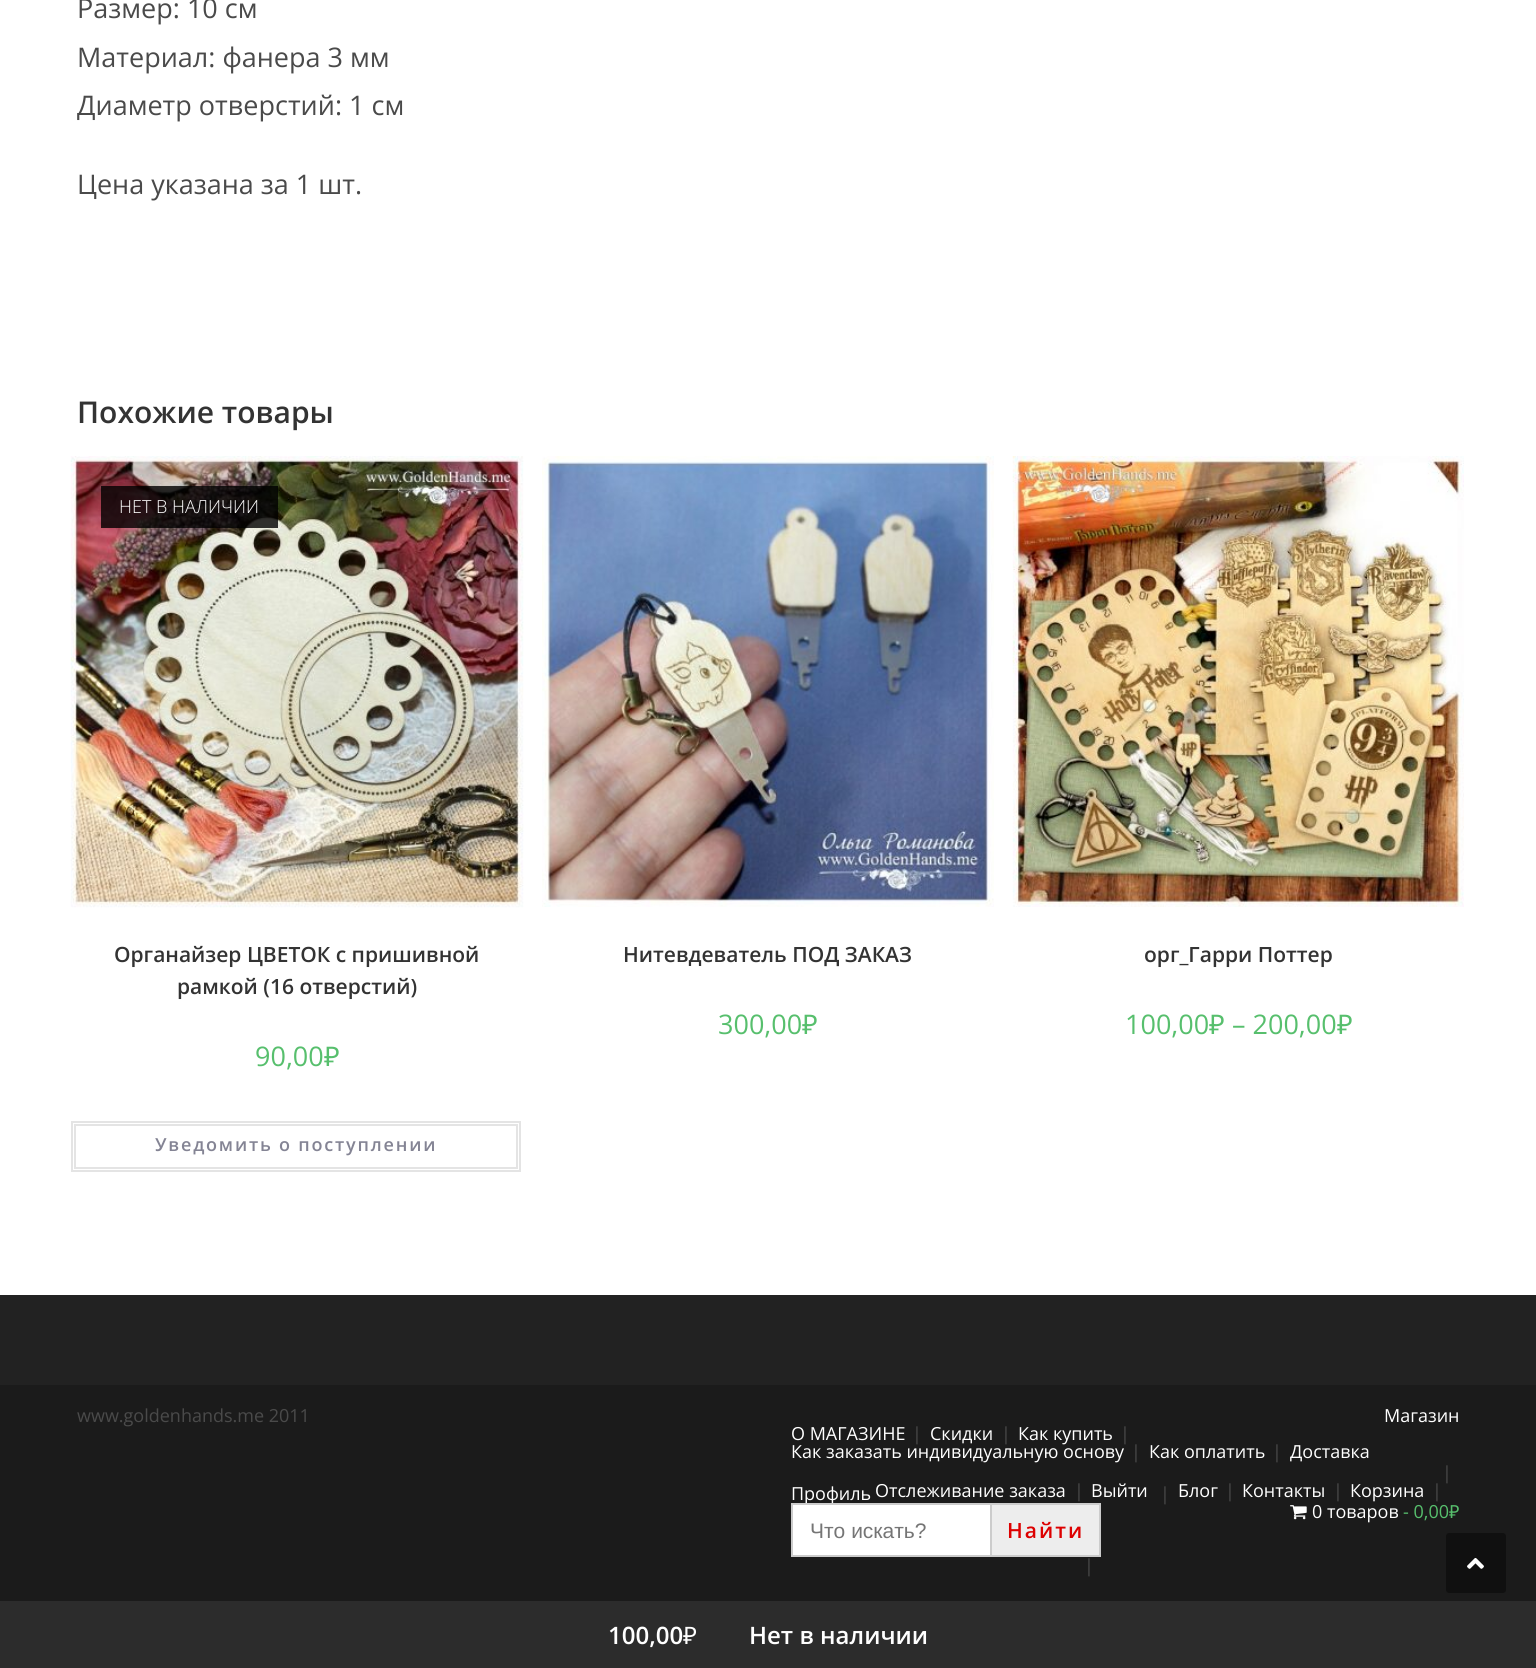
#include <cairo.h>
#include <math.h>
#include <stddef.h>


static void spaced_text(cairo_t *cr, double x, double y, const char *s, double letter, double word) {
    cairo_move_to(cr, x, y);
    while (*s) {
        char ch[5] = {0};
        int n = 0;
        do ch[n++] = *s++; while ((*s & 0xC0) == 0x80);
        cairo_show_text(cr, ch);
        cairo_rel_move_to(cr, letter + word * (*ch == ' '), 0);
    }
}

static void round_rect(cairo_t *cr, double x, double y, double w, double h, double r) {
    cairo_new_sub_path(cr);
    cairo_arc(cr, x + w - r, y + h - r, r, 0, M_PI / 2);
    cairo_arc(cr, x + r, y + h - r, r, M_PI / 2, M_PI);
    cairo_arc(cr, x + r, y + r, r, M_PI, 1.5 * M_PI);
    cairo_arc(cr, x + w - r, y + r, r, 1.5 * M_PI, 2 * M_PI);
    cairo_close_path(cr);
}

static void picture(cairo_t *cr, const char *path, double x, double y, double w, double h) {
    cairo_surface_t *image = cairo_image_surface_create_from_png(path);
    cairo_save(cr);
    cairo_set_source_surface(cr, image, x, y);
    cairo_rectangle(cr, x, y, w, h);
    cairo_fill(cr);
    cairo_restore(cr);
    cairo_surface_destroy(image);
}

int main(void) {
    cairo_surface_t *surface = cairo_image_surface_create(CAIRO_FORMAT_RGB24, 1536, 1668);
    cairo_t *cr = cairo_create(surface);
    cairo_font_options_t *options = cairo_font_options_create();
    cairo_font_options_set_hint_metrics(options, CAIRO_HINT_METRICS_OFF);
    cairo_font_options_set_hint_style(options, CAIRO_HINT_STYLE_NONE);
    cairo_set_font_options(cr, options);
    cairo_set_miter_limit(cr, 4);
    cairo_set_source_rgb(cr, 1, 1, 1);
    cairo_paint(cr);
    cairo_select_font_face(cr, "Open Sans", CAIRO_FONT_SLANT_NORMAL, CAIRO_FONT_WEIGHT_NORMAL);
    cairo_set_font_size(cr, 27);
    cairo_set_source_rgb(cr, 0.29, 0.29, 0.29);
    cairo_move_to(cr, 77, 18);
    cairo_show_text(cr, "Размер: 10 см");
    cairo_move_to(cr, 77, 67);
    cairo_show_text(cr, "Материал: фанера 3 мм");
    cairo_move_to(cr, 77, 115);
    cairo_show_text(cr, "Диаметр отверстий: 1 см");
    cairo_move_to(cr, 77, 194);
    cairo_show_text(cr, "Цена указана за 1 шт.");
    cairo_select_font_face(cr, "Open Sans SemiBold", CAIRO_FONT_SLANT_NORMAL, CAIRO_FONT_WEIGHT_NORMAL);
    cairo_set_font_size(cr, 30);
    cairo_set_source_rgb(cr, 0.2, 0.2, 0.2);
    cairo_move_to(cr, 77, 423);
    cairo_show_text(cr, "Похожие товары");
    picture(cr, "img1.png", 70, 456, 454, 452);
    cairo_set_source_rgba(cr, 0, 0, 0, 0.8);
    cairo_rectangle(cr, 101, 486, 177, 42);
    cairo_fill(cr);
    cairo_select_font_face(cr, "Open Sans Light", CAIRO_FONT_SLANT_NORMAL, CAIRO_FONT_WEIGHT_NORMAL);
    cairo_set_font_size(cr, 18);
    cairo_set_source_rgb(cr, 1, 1, 1);
    cairo_move_to(cr, 119, 513);
    cairo_show_text(cr, "НЕТ В НАЛИЧИИ");
    cairo_select_font_face(cr, "Open Sans SemiBold", CAIRO_FONT_SLANT_NORMAL, CAIRO_FONT_WEIGHT_NORMAL);
    cairo_set_font_size(cr, 21);
    cairo_set_source_rgb(cr, 0.2, 0.2, 0.2);
    cairo_move_to(cr, 114, 962);
    cairo_show_text(cr, "Органайзер ЦВЕТОК с пришивной");
    cairo_move_to(cr, 177, 994);
    cairo_show_text(cr, "рамкой (16 отверстий)");
    cairo_select_font_face(cr, "Open Sans", CAIRO_FONT_SLANT_NORMAL, CAIRO_FONT_WEIGHT_NORMAL);
    cairo_set_font_size(cr, 27);
    cairo_set_source_rgb(cr, 0.341, 0.749, 0.427);
    cairo_move_to(cr, 255, 1066);
    cairo_show_text(cr, "90,00");
    cairo_select_font_face(cr, "Noto Sans", CAIRO_FONT_SLANT_NORMAL, CAIRO_FONT_WEIGHT_NORMAL);
    cairo_move_to(cr, 324, 1066);
    cairo_show_text(cr, "₽");
    cairo_rectangle(cr, 72, 1122, 448, 49);
    cairo_set_source_rgb(cr, 0.894, 0.894, 0.894);
    cairo_stroke(cr);
    cairo_rectangle(cr, 75, 1125, 442, 43);
    cairo_stroke(cr);
    cairo_select_font_face(cr, "Open Sans SemiBold", CAIRO_FONT_SLANT_NORMAL, CAIRO_FONT_WEIGHT_NORMAL);
    cairo_set_font_size(cr, 18);
    cairo_set_source_rgb(cr, 0.518, 0.518, 0.58);
    spaced_text(cr, 155, 1151, "Уведомить о поступлении", 1.8, 0);
    picture(cr, "img2.png", 542, 456, 452, 451);
    cairo_set_font_size(cr, 21);
    cairo_set_source_rgb(cr, 0.2, 0.2, 0.2);
    cairo_move_to(cr, 623, 962);
    cairo_show_text(cr, "Нитевдеватель ПОД ЗАКАЗ");
    cairo_select_font_face(cr, "Open Sans", CAIRO_FONT_SLANT_NORMAL, CAIRO_FONT_WEIGHT_NORMAL);
    cairo_set_font_size(cr, 27);
    cairo_set_source_rgb(cr, 0.341, 0.749, 0.427);
    cairo_move_to(cr, 718, 1034);
    cairo_show_text(cr, "300,00");
    cairo_select_font_face(cr, "Noto Sans", CAIRO_FONT_SLANT_NORMAL, CAIRO_FONT_WEIGHT_NORMAL);
    cairo_move_to(cr, 802, 1034);
    cairo_show_text(cr, "₽");
    picture(cr, "img3.png", 1012, 456, 452, 451);
    cairo_select_font_face(cr, "Open Sans SemiBold", CAIRO_FONT_SLANT_NORMAL, CAIRO_FONT_WEIGHT_NORMAL);
    cairo_set_font_size(cr, 21);
    cairo_set_source_rgb(cr, 0.2, 0.2, 0.2);
    cairo_move_to(cr, 1144, 962);
    cairo_show_text(cr, "орг_Гарри Поттер");
    cairo_select_font_face(cr, "Open Sans", CAIRO_FONT_SLANT_NORMAL, CAIRO_FONT_WEIGHT_NORMAL);
    cairo_set_font_size(cr, 27);
    cairo_set_source_rgb(cr, 0.341, 0.749, 0.427);
    cairo_move_to(cr, 1125, 1034);
    cairo_show_text(cr, "100,00");
    cairo_select_font_face(cr, "Noto Sans", CAIRO_FONT_SLANT_NORMAL, CAIRO_FONT_WEIGHT_NORMAL);
    cairo_move_to(cr, 1209, 1034);
    cairo_show_text(cr, "₽");
    cairo_select_font_face(cr, "Open Sans", CAIRO_FONT_SLANT_NORMAL, CAIRO_FONT_WEIGHT_NORMAL);
    cairo_move_to(cr, 1232, 1034);
    cairo_show_text(cr, "– 200,00");
    cairo_select_font_face(cr, "Noto Sans", CAIRO_FONT_SLANT_NORMAL, CAIRO_FONT_WEIGHT_NORMAL);
    cairo_move_to(cr, 1337, 1034);
    cairo_show_text(cr, "₽");
    cairo_set_source_rgb(cr, 0.133, 0.133, 0.133);
    cairo_rectangle(cr, 0, 1295, 1536, 90);
    cairo_fill(cr);
    cairo_set_source_rgb(cr, 0.106, 0.106, 0.106);
    cairo_rectangle(cr, 0, 1385, 1536, 216);
    cairo_fill(cr);
    cairo_select_font_face(cr, "Open Sans", CAIRO_FONT_SLANT_NORMAL, CAIRO_FONT_WEIGHT_NORMAL);
    cairo_set_font_size(cr, 18);
    cairo_set_source_rgb(cr, 0.29, 0.29, 0.29);
    cairo_move_to(cr, 77, 1422);
    cairo_show_text(cr, "www.goldenhands.me 2011");
    cairo_set_source_rgb(cr, 1, 1, 1);
    cairo_move_to(cr, 1384, 1422);
    cairo_show_text(cr, "Магазин");
    cairo_move_to(cr, 791, 1440);
    cairo_show_text(cr, "О МАГАЗИНЕ");
    cairo_set_source_rgb(cr, 0.29, 0.29, 0.29);
    cairo_move_to(cr, 912, 1440);
    cairo_show_text(cr, "|");
    cairo_set_source_rgb(cr, 1, 1, 1);
    cairo_move_to(cr, 930, 1440);
    cairo_show_text(cr, "Скидки");
    cairo_set_source_rgb(cr, 0.29, 0.29, 0.29);
    cairo_move_to(cr, 1001, 1440);
    cairo_show_text(cr, "|");
    cairo_set_source_rgb(cr, 1, 1, 1);
    cairo_move_to(cr, 1018, 1440);
    cairo_show_text(cr, "Как купить");
    cairo_set_source_rgb(cr, 0.29, 0.29, 0.29);
    cairo_move_to(cr, 1120, 1440);
    cairo_show_text(cr, "|");
    cairo_set_source_rgb(cr, 1, 1, 1);
    cairo_move_to(cr, 791, 1458);
    cairo_show_text(cr, "Как заказать индивидуальную основу");
    cairo_set_source_rgb(cr, 0.29, 0.29, 0.29);
    cairo_move_to(cr, 1131, 1458);
    cairo_show_text(cr, "|");
    cairo_set_source_rgb(cr, 1, 1, 1);
    cairo_move_to(cr, 1149, 1458);
    cairo_show_text(cr, "Как оплатить");
    cairo_set_source_rgb(cr, 0.29, 0.29, 0.29);
    cairo_move_to(cr, 1272, 1458);
    cairo_show_text(cr, "|");
    cairo_set_source_rgb(cr, 1, 1, 1);
    cairo_move_to(cr, 1290, 1458);
    cairo_show_text(cr, "Доставка");
    cairo_set_source_rgb(cr, 0.29, 0.29, 0.29);
    cairo_move_to(cr, 1442, 1479);
    cairo_show_text(cr, "|");
    cairo_set_source_rgb(cr, 1, 1, 1);
    cairo_move_to(cr, 791, 1500);
    cairo_show_text(cr, "Профиль");
    cairo_move_to(cr, 875, 1497);
    cairo_show_text(cr, "Отслеживание заказа");
    cairo_set_source_rgb(cr, 0.29, 0.29, 0.29);
    cairo_move_to(cr, 1074, 1497);
    cairo_show_text(cr, "|");
    cairo_set_source_rgb(cr, 1, 1, 1);
    cairo_move_to(cr, 1091, 1497);
    cairo_show_text(cr, "Выйти");
    cairo_set_source_rgb(cr, 0.29, 0.29, 0.29);
    cairo_move_to(cr, 1160, 1500);
    cairo_show_text(cr, "|");
    cairo_set_source_rgb(cr, 1, 1, 1);
    cairo_move_to(cr, 1178, 1497);
    cairo_show_text(cr, "Блог");
    cairo_set_source_rgb(cr, 0.29, 0.29, 0.29);
    cairo_move_to(cr, 1225, 1497);
    cairo_show_text(cr, "|");
    cairo_set_source_rgb(cr, 1, 1, 1);
    cairo_move_to(cr, 1242, 1497);
    cairo_show_text(cr, "Контакты");
    cairo_set_source_rgb(cr, 0.29, 0.29, 0.29);
    cairo_move_to(cr, 1333, 1497);
    cairo_show_text(cr, "|");
    cairo_set_source_rgb(cr, 1, 1, 1);
    cairo_move_to(cr, 1350, 1497);
    cairo_show_text(cr, "Корзина");
    cairo_set_source_rgb(cr, 0.29, 0.29, 0.29);
    cairo_move_to(cr, 1432, 1497);
    cairo_show_text(cr, "|");
    picture(cr, "img4.png", 1290, 1505, 17, 15);
    cairo_set_source_rgb(cr, 1, 1, 1);
    cairo_move_to(cr, 1312, 1518);
    cairo_show_text(cr, "0 товаров");
    cairo_set_source_rgb(cr, 0.341, 0.749, 0.427);
    cairo_move_to(cr, 1403, 1518);
    cairo_show_text(cr, "- 0,00");
    cairo_select_font_face(cr, "Noto Sans", CAIRO_FONT_SLANT_NORMAL, CAIRO_FONT_WEIGHT_NORMAL);
    cairo_move_to(cr, 1449, 1518);
    cairo_show_text(cr, "₽");
    cairo_set_source_rgb(cr, 1, 1, 1);
    cairo_rectangle(cr, 793, 1505, 197, 50);
    cairo_fill(cr);
    cairo_rectangle(cr, 792, 1504, 308, 52);
    cairo_set_source_rgb(cr, 0.8, 0.8, 0.8);
    cairo_stroke(cr);
    cairo_select_font_face(cr, "Liberation Sans", CAIRO_FONT_SLANT_NORMAL, CAIRO_FONT_WEIGHT_NORMAL);
    cairo_set_font_size(cr, 21);
    cairo_set_source_rgb(cr, 0.459, 0.459, 0.459);
    cairo_move_to(cr, 810, 1538);
    cairo_show_text(cr, "Что искать?");
    cairo_set_source_rgb(cr, 0.929, 0.929, 0.929);
    cairo_rectangle(cr, 991, 1504, 109, 52);
    cairo_fill_preserve(cr);
    cairo_set_source_rgb(cr, 0.8, 0.8, 0.8);
    cairo_stroke(cr);
    cairo_select_font_face(cr, "Open Sans SemiBold", CAIRO_FONT_SLANT_NORMAL, CAIRO_FONT_WEIGHT_NORMAL);
    cairo_set_source_rgb(cr, 0.867, 0, 0);
    spaced_text(cr, 1007, 1538, "Найти", 2, 0);
    cairo_select_font_face(cr, "Open Sans", CAIRO_FONT_SLANT_NORMAL, CAIRO_FONT_WEIGHT_NORMAL);
    cairo_set_font_size(cr, 18);
    cairo_set_source_rgb(cr, 0.29, 0.29, 0.29);
    cairo_move_to(cr, 1084, 1572);
    cairo_show_text(cr, "|");
    cairo_set_source_rgb(cr, 0.173, 0.173, 0.173);
    cairo_rectangle(cr, 0, 1601, 1536, 67);
    cairo_fill(cr);
    cairo_select_font_face(cr, "Open Sans SemiBold", CAIRO_FONT_SLANT_NORMAL, CAIRO_FONT_WEIGHT_NORMAL);
    cairo_set_font_size(cr, 24);
    cairo_set_source_rgb(cr, 1, 1, 1);
    cairo_move_to(cr, 608, 1644);
    cairo_show_text(cr, "100,00");
    cairo_select_font_face(cr, "Noto Sans", CAIRO_FONT_SLANT_NORMAL, CAIRO_FONT_WEIGHT_NORMAL);
    cairo_move_to(cr, 683, 1644);
    cairo_show_text(cr, "₽");
    cairo_select_font_face(cr, "Open Sans SemiBold", CAIRO_FONT_SLANT_NORMAL, CAIRO_FONT_WEIGHT_NORMAL);
    cairo_move_to(cr, 749, 1644);
    cairo_show_text(cr, "Нет в наличии");
    cairo_set_source_rgb(cr, 0.063, 0.063, 0.063);
    round_rect(cr, 1446, 1533, 60, 60, 3);
    cairo_fill(cr);
    picture(cr, "img5.png", 1467, 1558, 17, 11);
    cairo_surface_write_to_png(surface, "page.png");
    cairo_font_options_destroy(options);
    cairo_destroy(cr);
    cairo_surface_destroy(surface);
    return 0;
}
